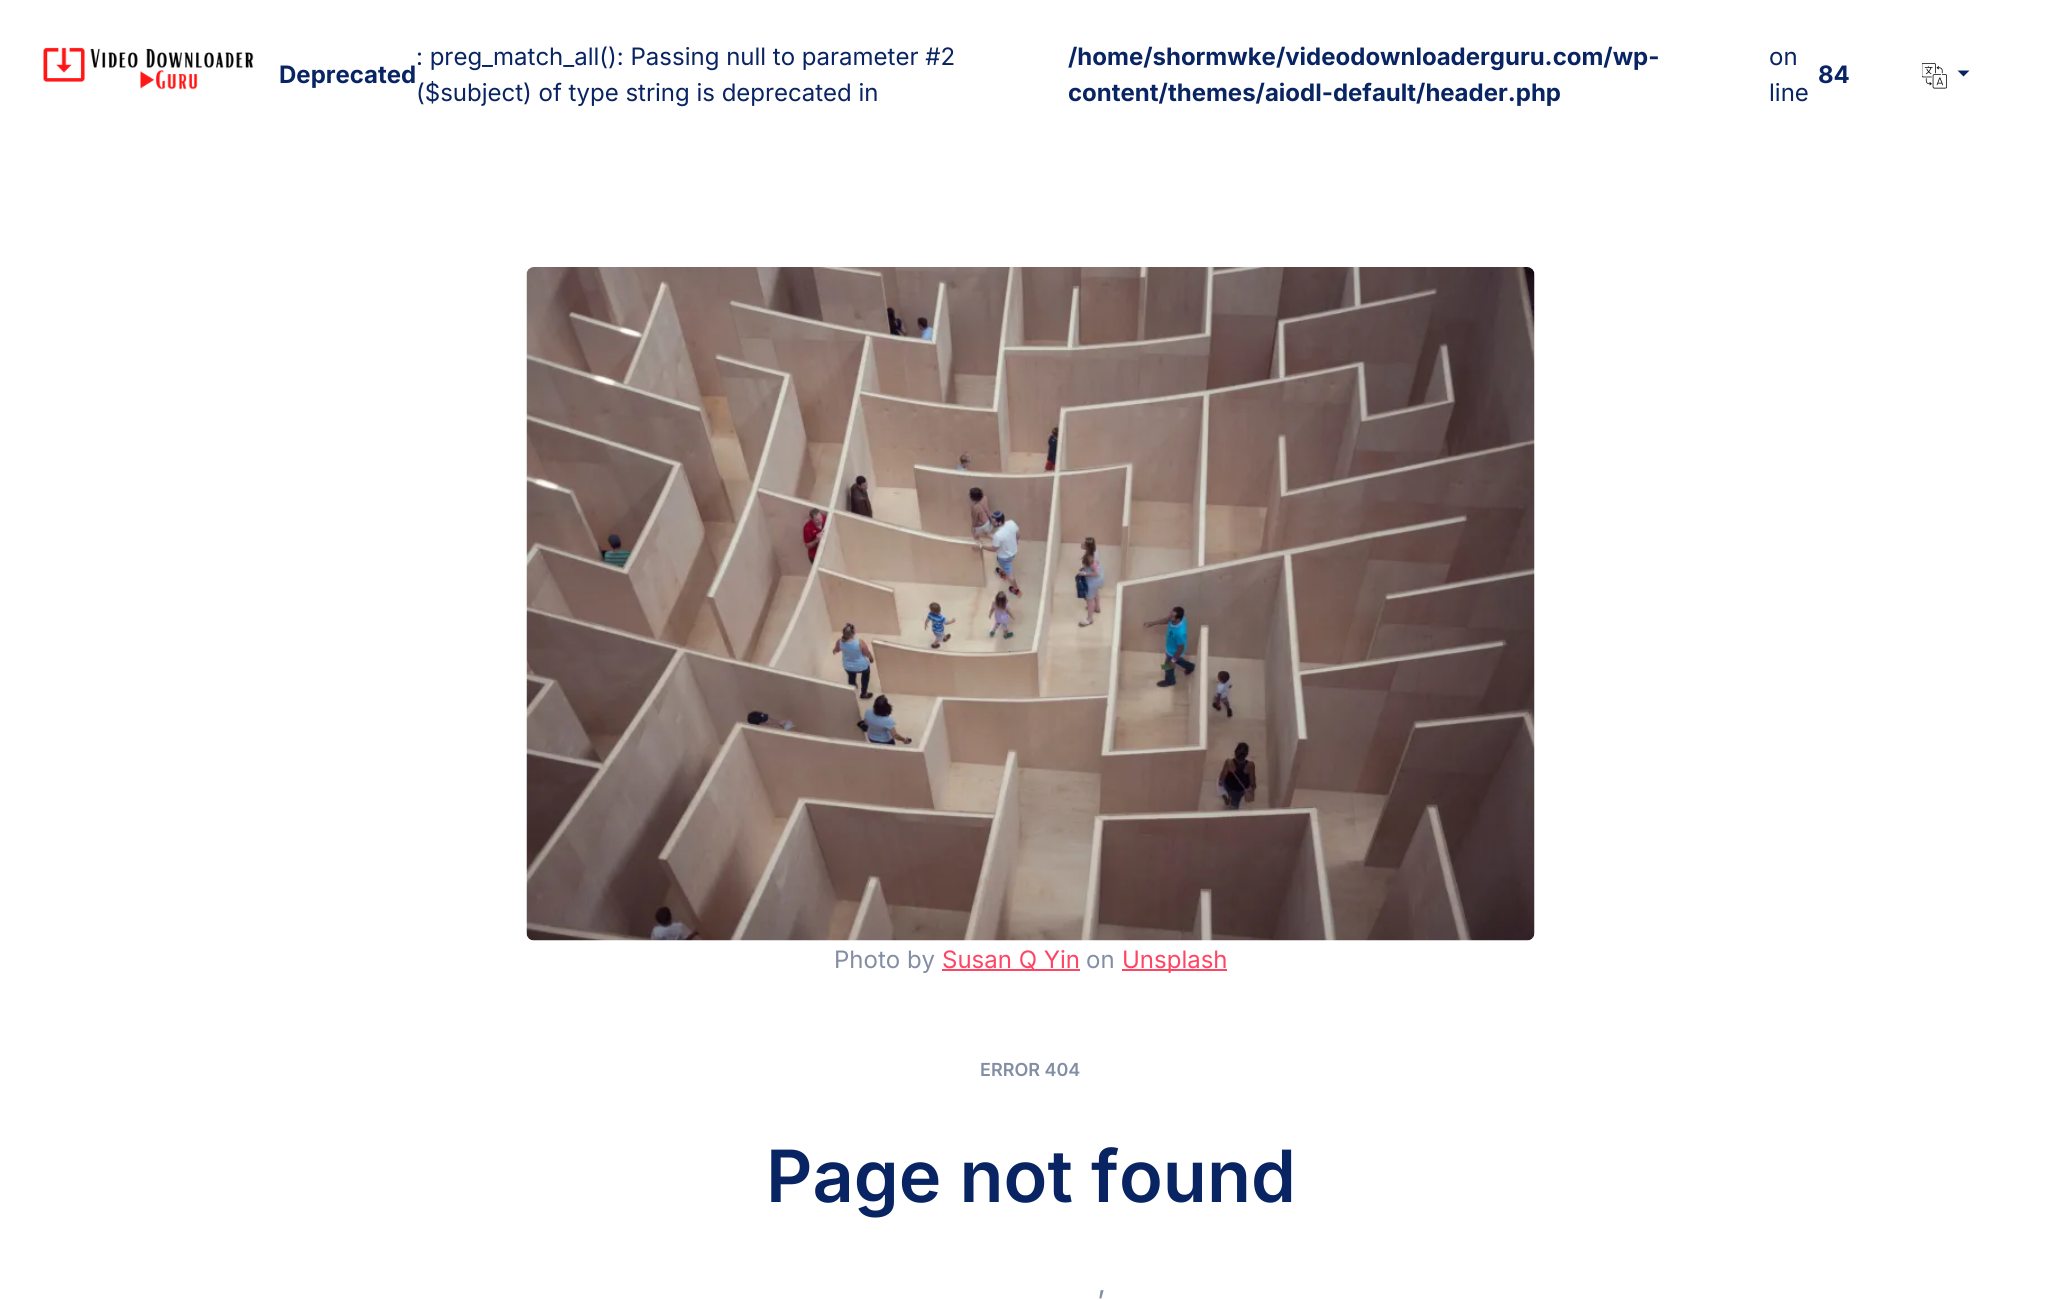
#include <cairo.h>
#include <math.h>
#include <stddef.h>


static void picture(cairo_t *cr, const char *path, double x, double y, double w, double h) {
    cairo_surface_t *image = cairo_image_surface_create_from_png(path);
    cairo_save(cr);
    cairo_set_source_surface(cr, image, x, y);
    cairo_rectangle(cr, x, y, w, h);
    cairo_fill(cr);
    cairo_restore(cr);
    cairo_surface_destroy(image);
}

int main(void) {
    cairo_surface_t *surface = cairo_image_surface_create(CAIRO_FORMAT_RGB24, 2061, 1300);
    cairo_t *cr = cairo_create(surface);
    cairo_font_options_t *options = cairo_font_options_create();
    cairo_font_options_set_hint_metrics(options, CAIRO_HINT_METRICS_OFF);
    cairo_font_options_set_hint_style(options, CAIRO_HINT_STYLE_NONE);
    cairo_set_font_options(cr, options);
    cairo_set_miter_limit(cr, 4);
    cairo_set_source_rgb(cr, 1, 1, 1);
    cairo_paint(cr);
    picture(cr, "img1.png", 43, 47, 211, 43);
    cairo_select_font_face(cr, "Inter", CAIRO_FONT_SLANT_NORMAL, CAIRO_FONT_WEIGHT_NORMAL);
    cairo_set_font_size(cr, 24);
    cairo_set_source_rgb(cr, 0.039, 0.141, 0.388);
    cairo_move_to(cr, 416, 65);
    cairo_show_text(cr, ": preg_match_all(): Passing null to parameter #2");
    cairo_select_font_face(cr, "Inter", CAIRO_FONT_SLANT_NORMAL, CAIRO_FONT_WEIGHT_BOLD);
    cairo_move_to(cr, 1068, 65);
    cairo_show_text(cr, "/home/shormwke/videodownloaderguru.com/wp-");
    cairo_move_to(cr, 1068, 101);
    cairo_show_text(cr, "content/themes/aiodl-default/header.php");
    cairo_select_font_face(cr, "Inter", CAIRO_FONT_SLANT_NORMAL, CAIRO_FONT_WEIGHT_NORMAL);
    cairo_move_to(cr, 1769, 65);
    cairo_show_text(cr, "on");
    cairo_select_font_face(cr, "Inter", CAIRO_FONT_SLANT_NORMAL, CAIRO_FONT_WEIGHT_BOLD);
    cairo_move_to(cr, 279, 83);
    cairo_show_text(cr, "Deprecated");
    cairo_move_to(cr, 1818, 83);
    cairo_show_text(cr, "84");
    picture(cr, "img2.png", 1922, 63, 25, 26);
    cairo_new_path(cr);
    cairo_move_to(cr, 1957.5, 70.5);
    cairo_line_to(cr, 1969.5, 70.5);
    cairo_line_to(cr, 1963.5, 76.5);
    cairo_close_path(cr);
    cairo_fill(cr);
    cairo_select_font_face(cr, "Inter", CAIRO_FONT_SLANT_NORMAL, CAIRO_FONT_WEIGHT_NORMAL);
    cairo_move_to(cr, 416, 101);
    cairo_show_text(cr, "($subject) of type string is deprecated in");
    cairo_move_to(cr, 1769, 101);
    cairo_show_text(cr, "line");
    picture(cr, "img3.png", 526, 267, 1009, 674);
    cairo_set_source_rgb(cr, 0.514, 0.557, 0.643);
    cairo_move_to(cr, 834, 968);
    cairo_show_text(cr, "Photo by");
    cairo_set_source_rgb(cr, 1, 0.271, 0.392);
    cairo_rectangle(cr, 942, 969, 138, 2);
    cairo_fill(cr);
    cairo_move_to(cr, 942, 968);
    cairo_show_text(cr, "Susan Q Yin");
    cairo_set_source_rgb(cr, 0.514, 0.557, 0.643);
    cairo_move_to(cr, 1086, 968);
    cairo_show_text(cr, "on");
    cairo_set_source_rgb(cr, 1, 0.271, 0.392);
    cairo_rectangle(cr, 1122, 969, 105, 2);
    cairo_fill(cr);
    cairo_move_to(cr, 1122, 968);
    cairo_show_text(cr, "Unsplash");
    cairo_select_font_face(cr, "Inter SemiBold", CAIRO_FONT_SLANT_NORMAL, CAIRO_FONT_WEIGHT_NORMAL);
    cairo_set_font_size(cr, 18);
    cairo_set_source_rgb(cr, 0.514, 0.557, 0.643);
    cairo_move_to(cr, 980, 1076);
    cairo_show_text(cr, "ERROR 404");
    cairo_set_font_size(cr, 72);
    cairo_set_source_rgb(cr, 0.039, 0.141, 0.388);
    cairo_move_to(cr, 766, 1202);
    cairo_show_text(cr, "Page not found");
    cairo_select_font_face(cr, "Inter", CAIRO_FONT_SLANT_NORMAL, CAIRO_FONT_WEIGHT_NORMAL);
    cairo_set_font_size(cr, 30);
    cairo_set_source_rgb(cr, 0.514, 0.557, 0.643);
    cairo_move_to(cr, 1097, 1312);
    cairo_show_text(cr, "’");
    cairo_surface_write_to_png(surface, "page.png");
    cairo_font_options_destroy(options);
    cairo_destroy(cr);
    cairo_surface_destroy(surface);
    return 0;
}
